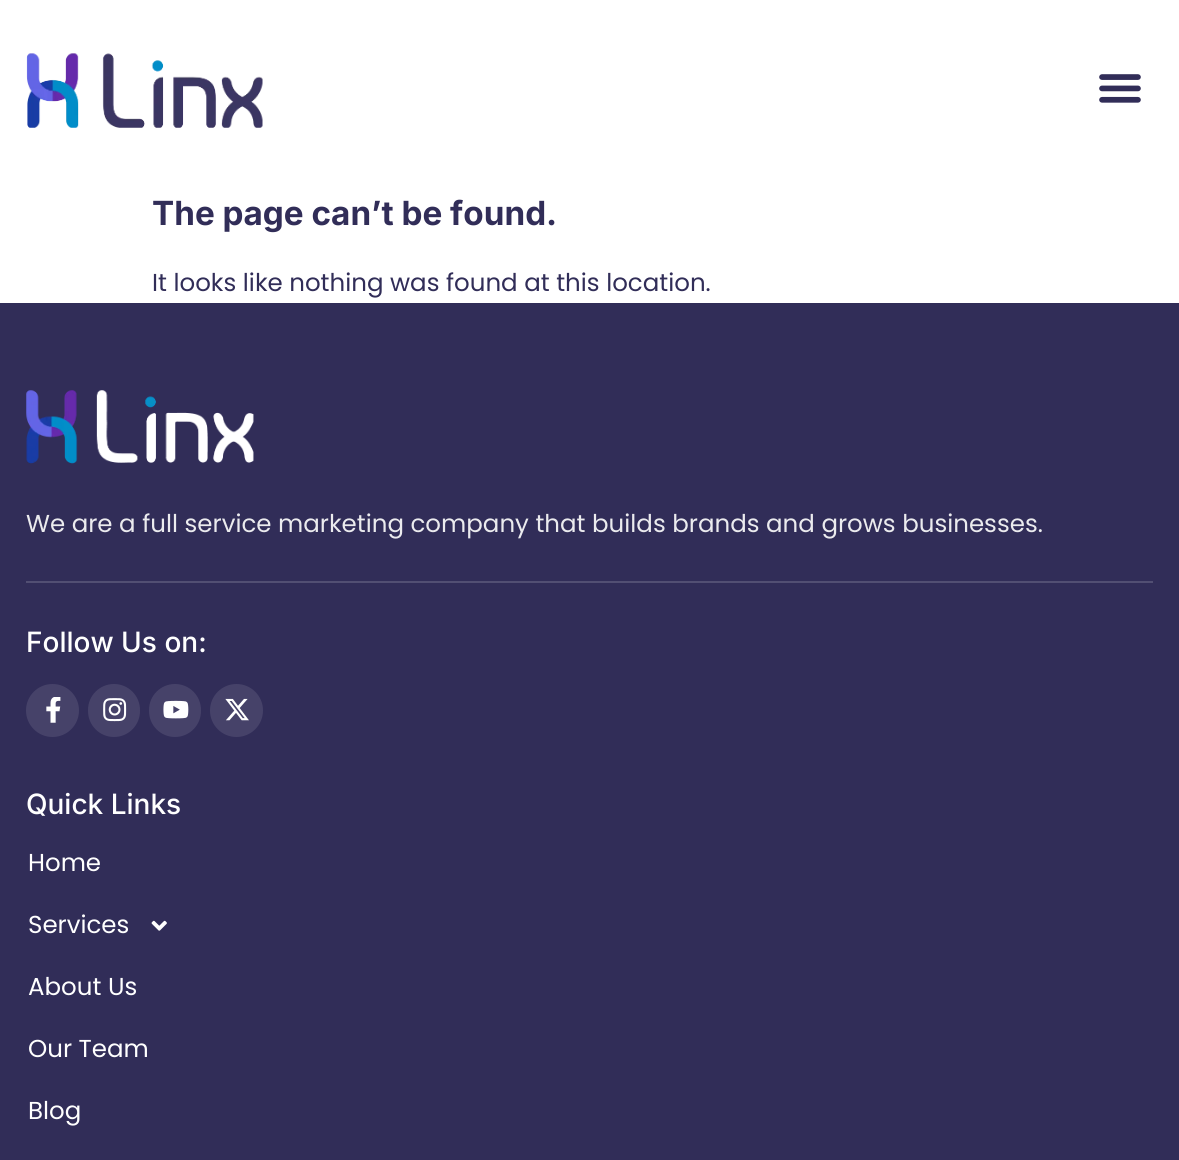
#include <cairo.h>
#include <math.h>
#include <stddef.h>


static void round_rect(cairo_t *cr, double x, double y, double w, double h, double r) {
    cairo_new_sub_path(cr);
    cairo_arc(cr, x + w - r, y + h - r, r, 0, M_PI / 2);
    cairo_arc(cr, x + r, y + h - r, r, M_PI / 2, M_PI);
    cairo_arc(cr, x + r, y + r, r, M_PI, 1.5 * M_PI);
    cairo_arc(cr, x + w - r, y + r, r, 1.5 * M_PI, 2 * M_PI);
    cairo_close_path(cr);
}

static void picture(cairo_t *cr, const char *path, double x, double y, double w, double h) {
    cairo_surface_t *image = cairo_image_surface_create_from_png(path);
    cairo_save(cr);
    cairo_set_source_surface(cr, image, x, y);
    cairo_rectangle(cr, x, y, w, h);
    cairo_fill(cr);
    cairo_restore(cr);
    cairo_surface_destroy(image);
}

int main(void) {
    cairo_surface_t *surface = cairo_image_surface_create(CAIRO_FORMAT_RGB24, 1179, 1160);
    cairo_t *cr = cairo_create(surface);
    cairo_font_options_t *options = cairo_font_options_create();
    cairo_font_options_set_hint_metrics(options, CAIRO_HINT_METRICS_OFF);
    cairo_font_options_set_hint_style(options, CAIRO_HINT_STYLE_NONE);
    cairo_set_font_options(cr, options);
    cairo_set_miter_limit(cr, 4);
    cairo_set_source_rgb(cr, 1, 1, 1);
    cairo_paint(cr);
    picture(cr, "img1.png", 26, 53, 237, 75);
    picture(cr, "img2.png", 1099, 74, 42, 29);
    cairo_select_font_face(cr, "Inter", CAIRO_FONT_SLANT_NORMAL, CAIRO_FONT_WEIGHT_BOLD);
    cairo_set_font_size(cr, 33.25);
    cairo_set_source_rgb(cr, 0.192, 0.176, 0.345);
    cairo_move_to(cr, 152, 225);
    cairo_show_text(cr, "The page can’t be found.");
    cairo_select_font_face(cr, "Poppins", CAIRO_FONT_SLANT_NORMAL, CAIRO_FONT_WEIGHT_NORMAL);
    cairo_set_font_size(cr, 24.5);
    cairo_move_to(cr, 152, 291);
    cairo_show_text(cr, "It looks like nothing was found at this location.");
    cairo_rectangle(cr, 0, 303, 1179, 857);
    cairo_fill(cr);
    cairo_set_source_rgb(cr, 0.322, 0.31, 0.451);
    cairo_rectangle(cr, 26, 581, 1127, 2);
    cairo_fill(cr);
    picture(cr, "img3.png", 26, 390, 228, 74);
    cairo_set_source_rgb(cr, 0.918, 0.918, 0.933);
    cairo_move_to(cr, 26, 532);
    cairo_show_text(cr, "We are a full service marketing company that builds brands and grows businesses.");
    cairo_select_font_face(cr, "Inter Medium", CAIRO_FONT_SLANT_NORMAL, CAIRO_FONT_WEIGHT_NORMAL);
    cairo_set_font_size(cr, 28);
    cairo_set_source_rgb(cr, 1, 1, 1);
    cairo_move_to(cr, 26, 652);
    cairo_show_text(cr, "Follow Us on:");
    cairo_set_source_rgb(cr, 0.275, 0.259, 0.412);
    cairo_new_path(cr);
    cairo_arc(cr, 52.5, 710.5, 26.5, 0, 2 * M_PI);
    cairo_fill(cr);
    picture(cr, "img4.png", 46, 697, 15, 26);
    round_rect(cr, 88, 684, 52, 53, 26);
    cairo_fill(cr);
    picture(cr, "img5.png", 103, 698, 24, 24);
    round_rect(cr, 149, 684, 52, 53, 26);
    cairo_fill(cr);
    picture(cr, "img6.png", 163, 700, 26, 19);
    cairo_arc(cr, 236.5, 710.5, 26.5, 0, 2 * M_PI);
    cairo_fill(cr);
    picture(cr, "img7.png", 225, 698, 24, 23);
    cairo_set_source_rgb(cr, 1, 1, 1);
    cairo_move_to(cr, 26, 814);
    cairo_show_text(cr, "Quick Links");
    cairo_select_font_face(cr, "Poppins", CAIRO_FONT_SLANT_NORMAL, CAIRO_FONT_WEIGHT_NORMAL);
    cairo_set_font_size(cr, 24.5);
    cairo_move_to(cr, 28, 871);
    cairo_show_text(cr, "Home");
    cairo_move_to(cr, 28, 933);
    cairo_show_text(cr, "Services");
    picture(cr, "img8.png", 151, 920, 16, 11);
    cairo_move_to(cr, 28, 995);
    cairo_show_text(cr, "About Us");
    cairo_move_to(cr, 28, 1057);
    cairo_show_text(cr, "Our Team");
    cairo_move_to(cr, 28, 1119);
    cairo_show_text(cr, "Blog");
    cairo_surface_write_to_png(surface, "page.png");
    cairo_font_options_destroy(options);
    cairo_destroy(cr);
    cairo_surface_destroy(surface);
    return 0;
}
